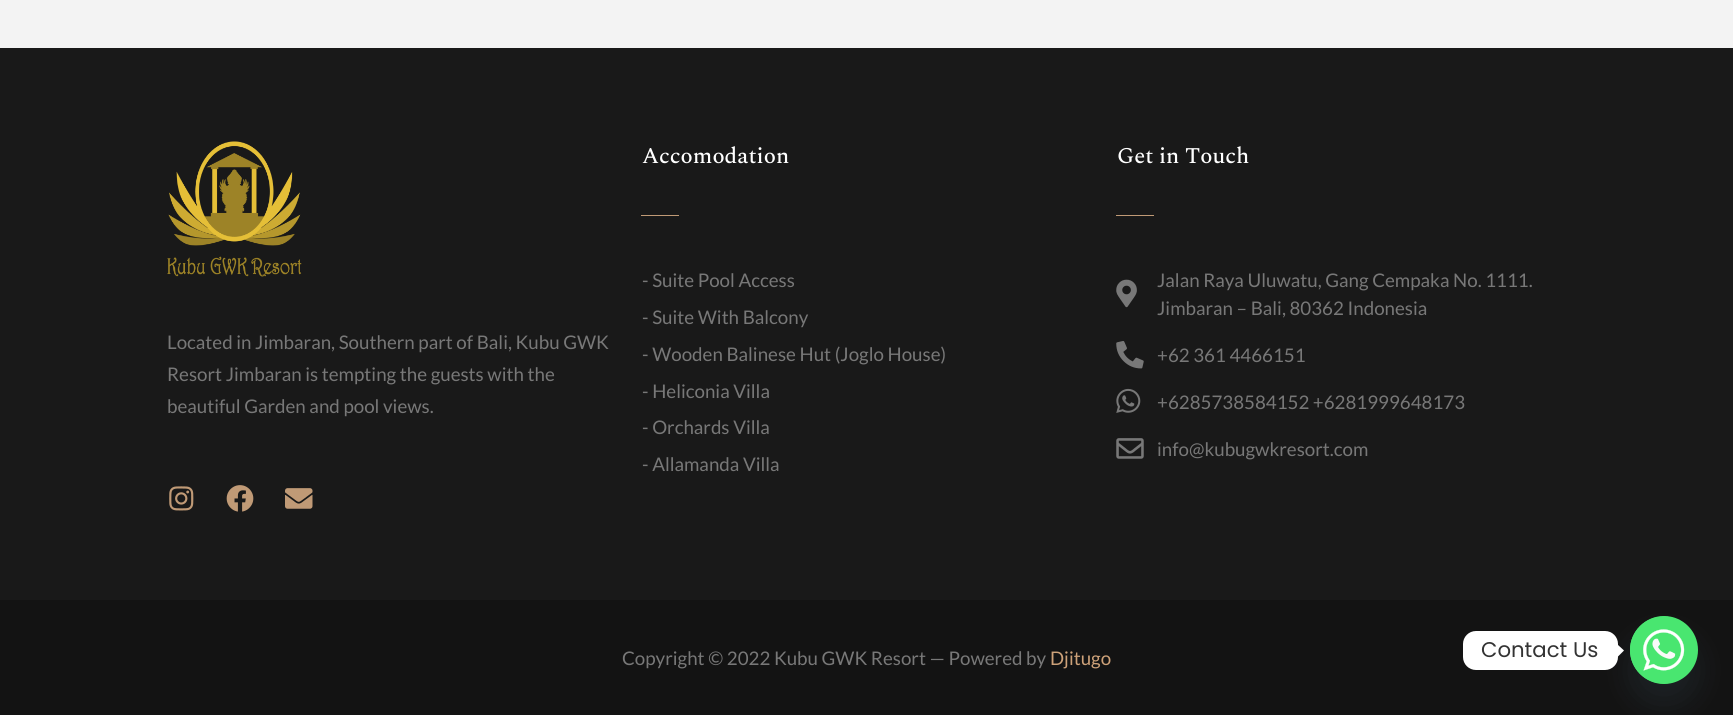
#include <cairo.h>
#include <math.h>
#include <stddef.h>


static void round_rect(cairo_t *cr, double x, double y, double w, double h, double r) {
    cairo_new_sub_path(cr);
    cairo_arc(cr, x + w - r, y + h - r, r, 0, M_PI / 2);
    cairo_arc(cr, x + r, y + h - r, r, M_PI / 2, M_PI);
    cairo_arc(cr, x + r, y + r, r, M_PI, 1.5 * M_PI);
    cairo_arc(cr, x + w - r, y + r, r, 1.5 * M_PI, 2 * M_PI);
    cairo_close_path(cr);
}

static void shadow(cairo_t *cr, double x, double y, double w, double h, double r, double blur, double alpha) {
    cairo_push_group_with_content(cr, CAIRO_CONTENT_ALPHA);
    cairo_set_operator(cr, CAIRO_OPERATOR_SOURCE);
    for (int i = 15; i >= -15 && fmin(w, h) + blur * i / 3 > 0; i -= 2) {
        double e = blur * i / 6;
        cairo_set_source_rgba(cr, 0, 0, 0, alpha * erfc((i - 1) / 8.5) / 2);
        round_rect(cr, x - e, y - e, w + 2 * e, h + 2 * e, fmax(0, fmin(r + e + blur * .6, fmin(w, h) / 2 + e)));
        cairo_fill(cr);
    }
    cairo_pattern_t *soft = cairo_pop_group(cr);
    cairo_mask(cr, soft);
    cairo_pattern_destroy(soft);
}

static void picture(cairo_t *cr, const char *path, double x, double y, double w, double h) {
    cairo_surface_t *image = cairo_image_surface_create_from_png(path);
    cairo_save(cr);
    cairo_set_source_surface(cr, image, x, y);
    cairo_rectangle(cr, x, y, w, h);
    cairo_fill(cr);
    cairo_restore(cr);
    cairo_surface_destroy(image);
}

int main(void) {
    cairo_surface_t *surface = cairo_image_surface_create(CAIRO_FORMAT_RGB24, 1733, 715);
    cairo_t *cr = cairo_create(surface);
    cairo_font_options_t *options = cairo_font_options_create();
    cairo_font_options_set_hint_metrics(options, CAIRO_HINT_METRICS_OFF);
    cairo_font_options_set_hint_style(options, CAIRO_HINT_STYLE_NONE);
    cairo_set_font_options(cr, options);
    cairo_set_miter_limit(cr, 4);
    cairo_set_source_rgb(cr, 0.953, 0.953, 0.953);
    cairo_paint(cr);
    cairo_set_source_rgb(cr, 0.098, 0.098, 0.098);
    cairo_rectangle(cr, 0, 48, 1733, 552);
    cairo_fill(cr);
    picture(cr, "img1.png", 167, 141, 135, 136);
    cairo_select_font_face(cr, "Lato", CAIRO_FONT_SLANT_NORMAL, CAIRO_FONT_WEIGHT_NORMAL);
    cairo_set_font_size(cr, 18.75);
    cairo_set_source_rgb(cr, 0.471, 0.471, 0.471);
    cairo_move_to(cr, 167, 349);
    cairo_show_text(cr, "Located in Jimbaran, Southern part of Bali, Kubu GWK");
    cairo_move_to(cr, 167, 381);
    cairo_show_text(cr, "Resort Jimbaran is tempting the guests with the");
    cairo_move_to(cr, 167, 413);
    cairo_show_text(cr, "beautiful Garden and pool views.");
    picture(cr, "img2.png", 169, 486, 25, 25);
    picture(cr, "img3.png", 226, 485, 28, 27);
    picture(cr, "img4.png", 285, 488, 28, 21);
    cairo_select_font_face(cr, "Spectral Medium", CAIRO_FONT_SLANT_NORMAL, CAIRO_FONT_WEIGHT_NORMAL);
    cairo_set_font_size(cr, 22.5);
    cairo_set_source_rgb(cr, 1, 1, 1);
    cairo_move_to(cr, 642, 163);
    cairo_show_text(cr, "Accomodation");
    cairo_set_source_rgb(cr, 0.753, 0.604, 0.463);
    cairo_rectangle(cr, 641, 215, 38, 1);
    cairo_fill(cr);
    cairo_select_font_face(cr, "Lato", CAIRO_FONT_SLANT_NORMAL, CAIRO_FONT_WEIGHT_NORMAL);
    cairo_set_font_size(cr, 18.75);
    cairo_set_source_rgb(cr, 0.471, 0.471, 0.471);
    cairo_move_to(cr, 642, 287);
    cairo_show_text(cr, "- Suite Pool Access");
    cairo_move_to(cr, 642, 324);
    cairo_show_text(cr, "- Suite With Balcony");
    cairo_move_to(cr, 642, 361);
    cairo_show_text(cr, "- Wooden Balinese Hut (Joglo House)");
    cairo_move_to(cr, 642, 398);
    cairo_show_text(cr, "- Heliconia Villa");
    cairo_move_to(cr, 642, 434);
    cairo_show_text(cr, "- Orchards Villa");
    cairo_move_to(cr, 642, 471);
    cairo_show_text(cr, "- Allamanda Villa");
    cairo_select_font_face(cr, "Spectral Medium", CAIRO_FONT_SLANT_NORMAL, CAIRO_FONT_WEIGHT_NORMAL);
    cairo_set_font_size(cr, 22.5);
    cairo_set_source_rgb(cr, 1, 1, 1);
    cairo_move_to(cr, 1117, 163);
    cairo_show_text(cr, "Get in Touch");
    cairo_set_source_rgb(cr, 0.753, 0.604, 0.463);
    cairo_rectangle(cr, 1116, 215, 38, 1);
    cairo_fill(cr);
    picture(cr, "img5.png", 1116, 279, 21, 29);
    cairo_select_font_face(cr, "Lato", CAIRO_FONT_SLANT_NORMAL, CAIRO_FONT_WEIGHT_NORMAL);
    cairo_set_font_size(cr, 18.75);
    cairo_set_source_rgb(cr, 0.471, 0.471, 0.471);
    cairo_move_to(cr, 1157, 287);
    cairo_show_text(cr, "Jalan Raya Uluwatu, Gang Cempaka No. 1111.");
    cairo_move_to(cr, 1157, 315);
    cairo_show_text(cr, "Jimbaran – Bali, 80362 Indonesia");
    picture(cr, "img6.png", 1116, 341, 28, 28);
    cairo_move_to(cr, 1157, 362);
    cairo_show_text(cr, "+62 361 4466151");
    picture(cr, "img7.png", 1116, 388, 25, 25);
    cairo_move_to(cr, 1157, 409);
    cairo_show_text(cr, "+6285738584152 +6281999648173");
    picture(cr, "img8.png", 1116, 438, 28, 21);
    cairo_move_to(cr, 1157, 456);
    cairo_show_text(cr, "info@kubugwkresort.com");
    cairo_set_source_rgb(cr, 0.078, 0.078, 0.078);
    cairo_rectangle(cr, 0, 600, 1733, 115);
    cairo_fill(cr);
    cairo_set_source_rgb(cr, 0.471, 0.471, 0.471);
    cairo_move_to(cr, 622, 665);
    cairo_show_text(cr, "Copyright © 2022 Kubu GWK Resort — Powered by");
    cairo_set_source_rgb(cr, 0.808, 0.635, 0.475);
    cairo_move_to(cr, 1050, 665);
    cairo_show_text(cr, "Djitugo");
    cairo_set_source_rgb(cr, 0.286, 0.408, 0.494);
    shadow(cr, 1630, 636, 68, 68, 34, 15, 0.16);
    cairo_set_source_rgb(cr, 1, 1, 1);
    round_rect(cr, 1463, 631, 155, 39, 13);
    cairo_fill(cr);
    cairo_select_font_face(cr, "Poppins", CAIRO_FONT_SLANT_NORMAL, CAIRO_FONT_WEIGHT_NORMAL);
    cairo_set_font_size(cr, 21.25);
    cairo_set_source_rgb(cr, 0.2, 0.2, 0.2);
    cairo_move_to(cr, 1481, 657);
    cairo_show_text(cr, "Contact Us");
    cairo_set_source_rgb(cr, 1, 1, 1);
    cairo_new_path(cr);
    cairo_move_to(cr, 1617.5, 657);
    cairo_line_to(cr, 1617.5, 644.5);
    cairo_line_to(cr, 1624, 650.5);
    cairo_close_path(cr);
    cairo_fill(cr);
    cairo_set_source_rgb(cr, 0.286, 0.902, 0.439);
    cairo_arc(cr, 1664, 650, 34, 0, 2 * M_PI);
    cairo_fill(cr);
    picture(cr, "img9.png", 1630, 616, 55, 68);
    cairo_surface_write_to_png(surface, "page.png");
    cairo_font_options_destroy(options);
    cairo_destroy(cr);
    cairo_surface_destroy(surface);
    return 0;
}
